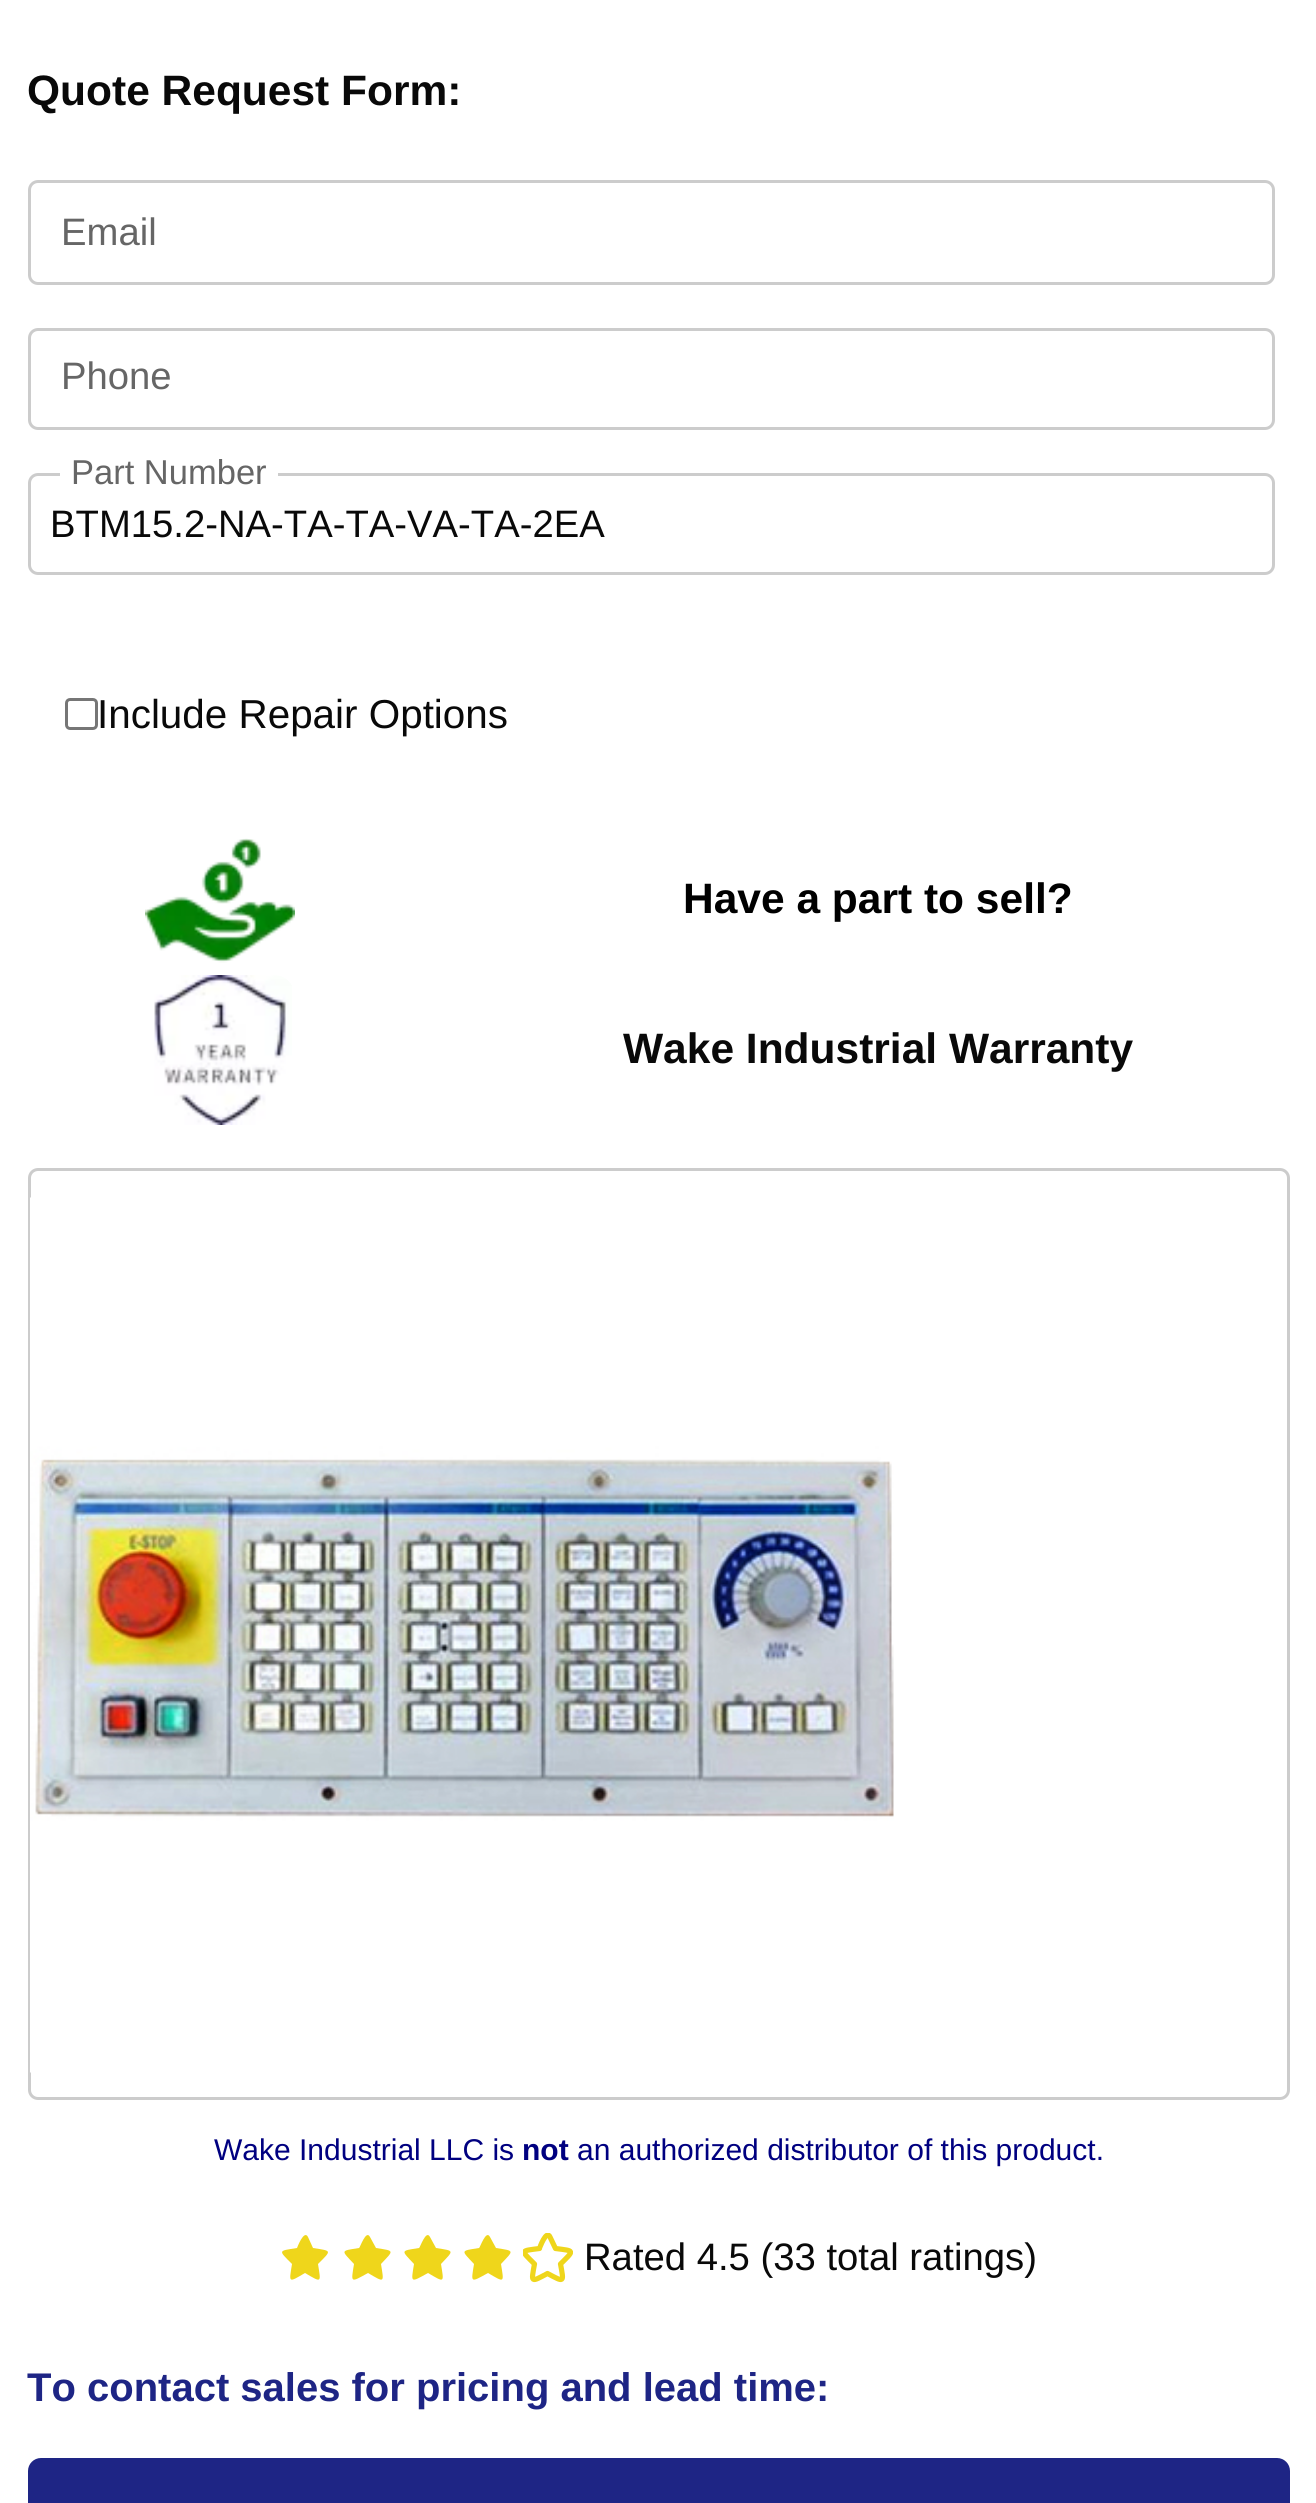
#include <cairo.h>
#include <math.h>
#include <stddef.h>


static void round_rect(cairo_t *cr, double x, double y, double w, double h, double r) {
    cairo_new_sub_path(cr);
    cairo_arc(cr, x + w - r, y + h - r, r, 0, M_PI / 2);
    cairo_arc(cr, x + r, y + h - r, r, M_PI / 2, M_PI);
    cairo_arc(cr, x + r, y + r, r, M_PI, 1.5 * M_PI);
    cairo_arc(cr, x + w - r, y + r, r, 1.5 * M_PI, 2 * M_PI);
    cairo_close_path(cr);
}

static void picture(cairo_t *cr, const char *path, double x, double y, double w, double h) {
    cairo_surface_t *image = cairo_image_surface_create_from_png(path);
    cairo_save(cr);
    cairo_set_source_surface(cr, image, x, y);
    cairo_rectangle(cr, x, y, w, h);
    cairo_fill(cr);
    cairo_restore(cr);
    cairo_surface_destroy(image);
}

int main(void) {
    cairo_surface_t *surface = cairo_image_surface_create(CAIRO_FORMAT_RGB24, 1316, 2503);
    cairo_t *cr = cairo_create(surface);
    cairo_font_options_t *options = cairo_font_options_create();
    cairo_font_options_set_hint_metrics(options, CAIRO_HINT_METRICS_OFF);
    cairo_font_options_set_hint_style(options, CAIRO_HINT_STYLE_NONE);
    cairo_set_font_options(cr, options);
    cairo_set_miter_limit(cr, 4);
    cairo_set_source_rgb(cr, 1, 1, 1);
    cairo_paint(cr);
    cairo_select_font_face(cr, "Liberation Sans", CAIRO_FONT_SLANT_NORMAL, CAIRO_FONT_WEIGHT_BOLD);
    cairo_set_font_size(cr, 42.5);
    cairo_set_source_rgb(cr, 0.039, 0.039, 0.039);
    cairo_move_to(cr, 27, 105);
    cairo_show_text(cr, "Quote Request Form:");
    round_rect(cr, 29.5, 181.5, 1244, 102, 8.5);
    cairo_set_source_rgb(cr, 0.8, 0.8, 0.8);
    cairo_set_line_width(cr, 3);
    cairo_stroke(cr);
    cairo_select_font_face(cr, "Liberation Sans", CAIRO_FONT_SLANT_NORMAL, CAIRO_FONT_WEIGHT_NORMAL);
    cairo_set_font_size(cr, 38.25);
    cairo_set_source_rgb(cr, 0.4, 0.4, 0.4);
    cairo_move_to(cr, 61, 245);
    cairo_show_text(cr, "Email");
    round_rect(cr, 29.5, 329.5, 1244, 99, 8.5);
    cairo_set_source_rgb(cr, 0.8, 0.8, 0.8);
    cairo_stroke(cr);
    cairo_set_source_rgb(cr, 0.4, 0.4, 0.4);
    cairo_move_to(cr, 61, 389);
    cairo_show_text(cr, "Phone");
    round_rect(cr, 29.5, 474.5, 1244, 99, 8.5);
    cairo_set_source_rgb(cr, 0.8, 0.8, 0.8);
    cairo_stroke(cr);
    cairo_set_source_rgb(cr, 1, 1, 1);
    cairo_rectangle(cr, 60, 473, 218, 3);
    cairo_fill(cr);
    cairo_set_font_size(cr, 34.5);
    cairo_set_source_rgb(cr, 0.4, 0.4, 0.4);
    cairo_move_to(cr, 71, 484);
    cairo_show_text(cr, "Part Number");
    cairo_set_font_size(cr, 38.25);
    cairo_set_source_rgb(cr, 0.039, 0.039, 0.039);
    cairo_move_to(cr, 50, 537);
    cairo_show_text(cr, "BTM15.2-NA-TA-TA-VA-TA-2EA");
    round_rect(cr, 66.5, 699.5, 30, 29, 3.5);
    cairo_set_source_rgb(cr, 0.463, 0.463, 0.463);
    cairo_stroke(cr);
    cairo_set_font_size(cr, 40.4);
    cairo_set_source_rgb(cr, 0.039, 0.039, 0.039);
    cairo_move_to(cr, 97, 728);
    cairo_show_text(cr, "Include Repair Options");
    picture(cr, "img1.png", 145, 838, 150, 125);
    cairo_select_font_face(cr, "Liberation Sans", CAIRO_FONT_SLANT_NORMAL, CAIRO_FONT_WEIGHT_BOLD);
    cairo_set_font_size(cr, 42.5);
    cairo_set_source_rgb(cr, 0, 0, 0);
    cairo_move_to(cr, 683, 913);
    cairo_show_text(cr, "Have a part to sell?");
    picture(cr, "img2.png", 154, 975, 138, 150);
    cairo_set_source_rgb(cr, 0.039, 0.039, 0.039);
    cairo_move_to(cr, 623, 1063);
    cairo_show_text(cr, "Wake Industrial Warranty");
    round_rect(cr, 29.5, 1169.5, 1259, 929, 8.5);
    cairo_set_source_rgb(cr, 0.8, 0.8, 0.8);
    cairo_stroke(cr);
    picture(cr, "img3.png", 30, 1197, 864, 876);
    cairo_select_font_face(cr, "Liberation Sans", CAIRO_FONT_SLANT_NORMAL, CAIRO_FONT_WEIGHT_NORMAL);
    cairo_set_font_size(cr, 30);
    cairo_set_source_rgb(cr, 0, 0, 0.502);
    cairo_move_to(cr, 214, 2160);
    cairo_show_text(cr, "Wake Industrial LLC is");
    cairo_select_font_face(cr, "Liberation Sans", CAIRO_FONT_SLANT_NORMAL, CAIRO_FONT_WEIGHT_BOLD);
    cairo_move_to(cr, 522, 2160);
    cairo_show_text(cr, "not");
    cairo_select_font_face(cr, "Liberation Sans", CAIRO_FONT_SLANT_NORMAL, CAIRO_FONT_WEIGHT_NORMAL);
    cairo_move_to(cr, 577, 2160);
    cairo_show_text(cr, "an authorized distributor of this product.");
    cairo_set_source_rgb(cr, 0.937, 0.839, 0.106);
    cairo_new_path(cr);
    cairo_move_to(cr, 308, 2237);
    cairo_curve_to(cr, 304, 2229, 297, 2248, 297, 2248);
    cairo_curve_to(cr, 278, 2251, 278, 2250, 292, 2264);
    cairo_curve_to(cr, 289, 2283, 288, 2283, 305, 2273);
    cairo_curve_to(cr, 322, 2283, 321, 2283, 318, 2264);
    cairo_curve_to(cr, 332, 2250, 332, 2251, 313, 2248);
    cairo_close_path(cr);
    cairo_fill(cr);
    cairo_new_path(cr);
    cairo_move_to(cr, 370, 2237);
    cairo_curve_to(cr, 366, 2229, 360, 2248, 359, 2248);
    cairo_curve_to(cr, 340, 2251, 341, 2250, 354, 2264);
    cairo_curve_to(cr, 351, 2283, 350, 2283, 368, 2273);
    cairo_curve_to(cr, 385, 2283, 384, 2283, 381, 2264);
    cairo_curve_to(cr, 394, 2250, 395, 2251, 376, 2248);
    cairo_close_path(cr);
    cairo_fill(cr);
    cairo_new_path(cr);
    cairo_move_to(cr, 430, 2237);
    cairo_curve_to(cr, 426, 2229, 420, 2248, 419, 2248);
    cairo_curve_to(cr, 400, 2251, 401, 2250, 414, 2264);
    cairo_curve_to(cr, 411, 2283, 410, 2283, 428, 2273);
    cairo_curve_to(cr, 445, 2283, 444, 2283, 441, 2264);
    cairo_curve_to(cr, 454, 2250, 455, 2251, 436, 2248);
    cairo_close_path(cr);
    cairo_fill(cr);
    cairo_new_path(cr);
    cairo_move_to(cr, 490, 2237);
    cairo_curve_to(cr, 486, 2229, 480, 2248, 479, 2248);
    cairo_curve_to(cr, 460, 2251, 461, 2250, 474, 2264);
    cairo_curve_to(cr, 471, 2283, 470, 2283, 488, 2273);
    cairo_curve_to(cr, 505, 2283, 504, 2283, 501, 2264);
    cairo_curve_to(cr, 514, 2250, 515, 2251, 496, 2248);
    cairo_close_path(cr);
    cairo_fill(cr);
    cairo_save(cr);
    cairo_rectangle(cr, 523, 2233, 50, 50);
    cairo_clip(cr);
    cairo_new_path(cr);
    cairo_move_to(cr, 550, 2237);
    cairo_curve_to(cr, 546.5, 2229, 539.5, 2248, 539.5, 2248.5);
    cairo_curve_to(cr, 520, 2251, 520.5, 2250, 534.5, 2264);
    cairo_curve_to(cr, 531, 2283, 530.5, 2282.5, 547.5, 2273.5);
    cairo_curve_to(cr, 564.5, 2282.5, 564, 2283, 560.5, 2264);
    cairo_curve_to(cr, 574.5, 2250, 575, 2251, 555.5, 2248.5);
    cairo_close_path(cr);
    cairo_set_line_width(cr, 5.2);
    cairo_set_line_join(cr, CAIRO_LINE_JOIN_ROUND);
    cairo_stroke(cr);
    cairo_restore(cr);
    cairo_set_font_size(cr, 38.25);
    cairo_set_source_rgb(cr, 0.039, 0.039, 0.039);
    cairo_move_to(cr, 584, 2270);
    cairo_show_text(cr, "Rated 4.5 (33 total ratings)");
    cairo_select_font_face(cr, "Liberation Sans", CAIRO_FONT_SLANT_NORMAL, CAIRO_FONT_WEIGHT_BOLD);
    cairo_set_font_size(cr, 40);
    cairo_set_source_rgb(cr, 0.118, 0.145, 0.522);
    cairo_move_to(cr, 27, 2401);
    cairo_show_text(cr, "To contact sales for pricing and lead time:");
    round_rect(cr, 28, 2458, 1262, 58, 13);
    cairo_fill(cr);
    cairo_surface_write_to_png(surface, "page.png");
    cairo_font_options_destroy(options);
    cairo_destroy(cr);
    cairo_surface_destroy(surface);
    return 0;
}
